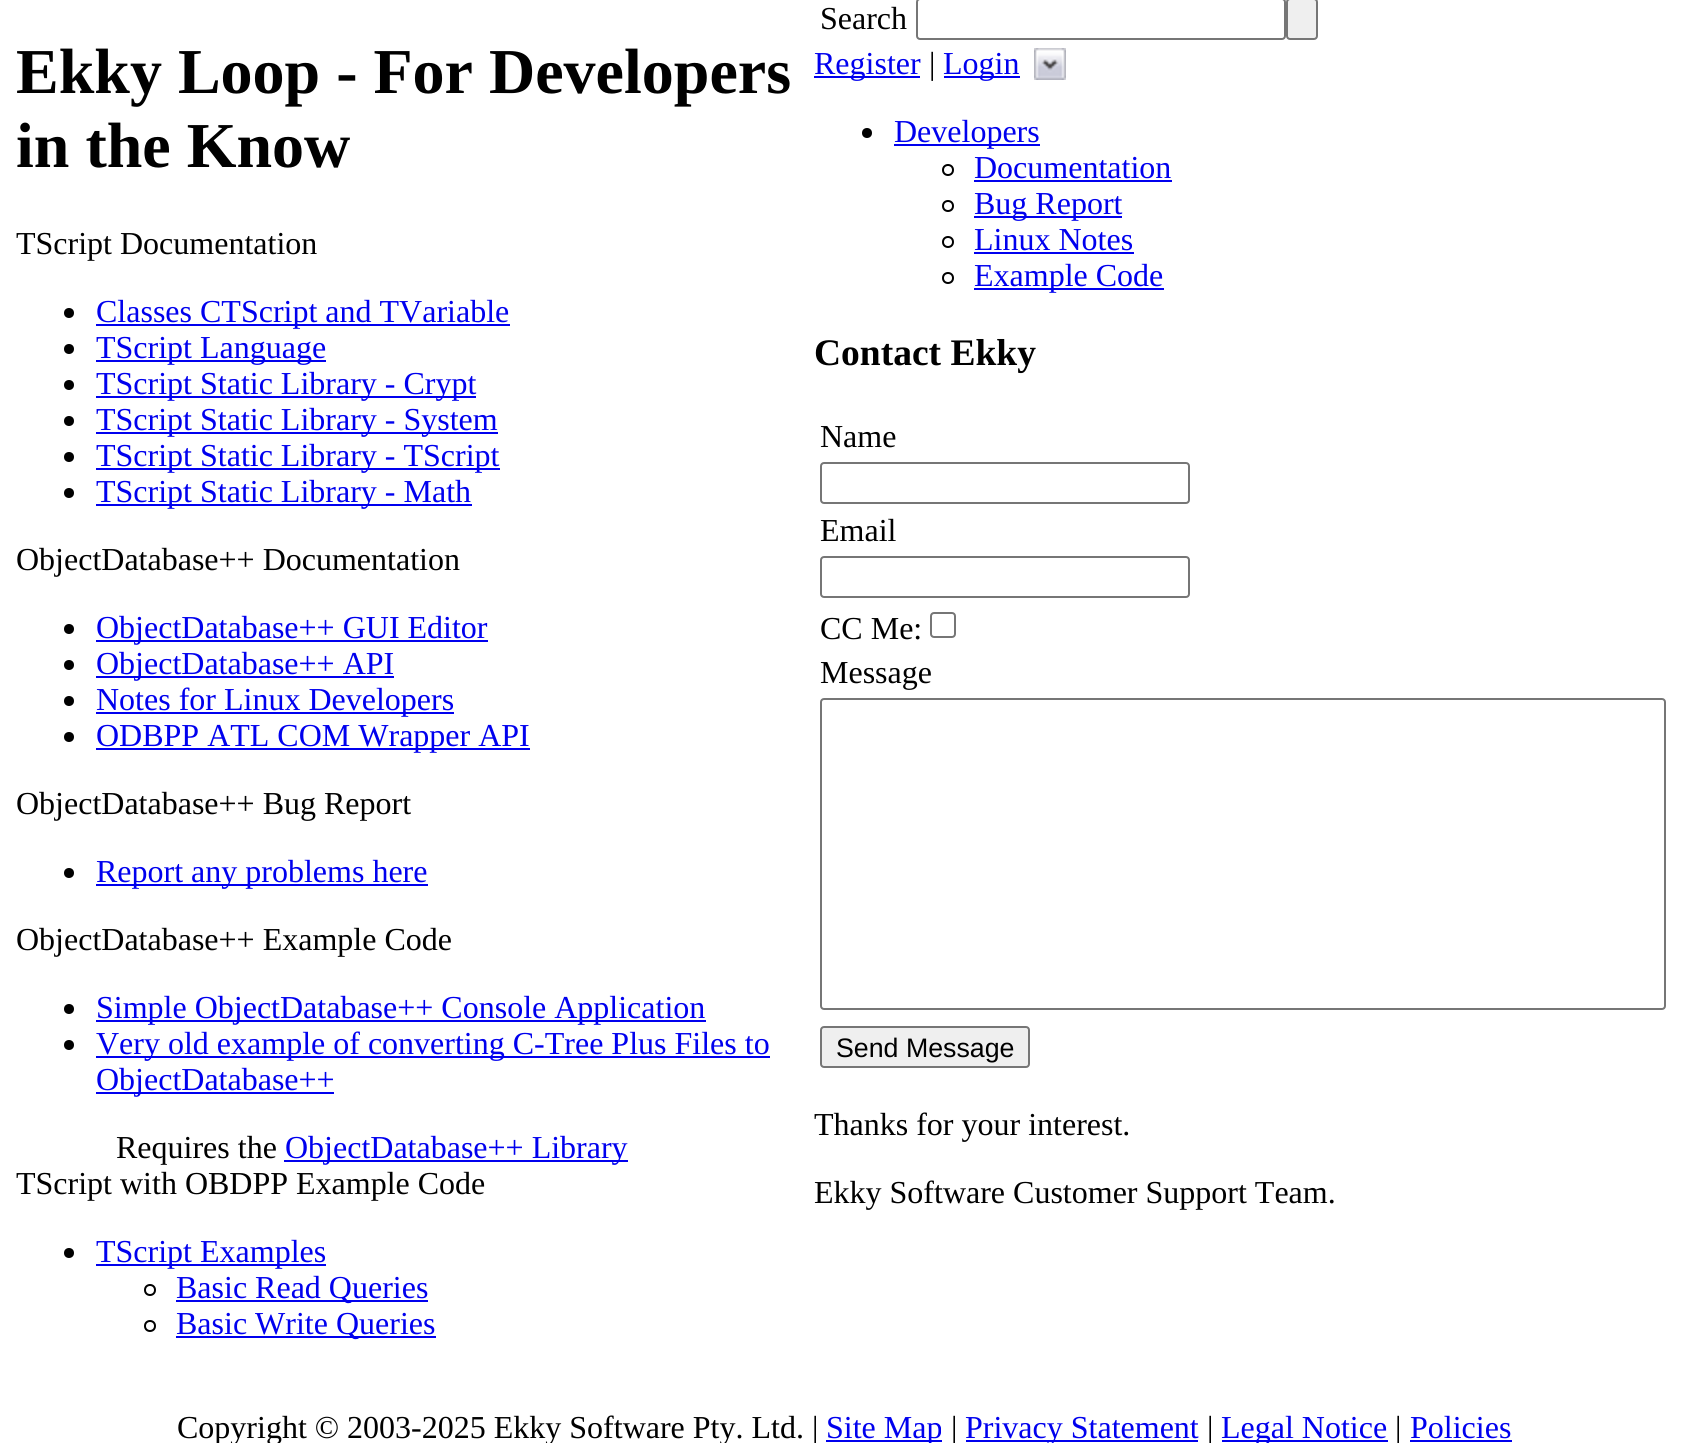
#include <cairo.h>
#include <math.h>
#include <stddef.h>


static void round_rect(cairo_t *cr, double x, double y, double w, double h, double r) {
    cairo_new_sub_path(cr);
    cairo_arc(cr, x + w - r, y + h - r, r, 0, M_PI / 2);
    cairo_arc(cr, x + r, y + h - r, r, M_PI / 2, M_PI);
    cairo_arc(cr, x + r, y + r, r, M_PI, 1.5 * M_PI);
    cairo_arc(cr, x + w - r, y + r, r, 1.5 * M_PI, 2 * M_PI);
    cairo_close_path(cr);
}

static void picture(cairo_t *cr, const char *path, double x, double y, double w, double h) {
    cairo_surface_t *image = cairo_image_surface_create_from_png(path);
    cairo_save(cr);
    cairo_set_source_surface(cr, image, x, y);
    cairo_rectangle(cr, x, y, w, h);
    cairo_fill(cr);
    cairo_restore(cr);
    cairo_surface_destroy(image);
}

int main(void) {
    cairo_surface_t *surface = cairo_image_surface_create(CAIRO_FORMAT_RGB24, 1688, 1443);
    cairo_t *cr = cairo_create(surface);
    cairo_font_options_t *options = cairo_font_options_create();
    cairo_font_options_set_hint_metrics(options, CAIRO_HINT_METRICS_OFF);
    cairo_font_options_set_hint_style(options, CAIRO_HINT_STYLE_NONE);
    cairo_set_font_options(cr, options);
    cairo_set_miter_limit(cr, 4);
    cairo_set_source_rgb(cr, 1, 1, 1);
    cairo_paint(cr);
    cairo_select_font_face(cr, "Liberation Serif", CAIRO_FONT_SLANT_NORMAL, CAIRO_FONT_WEIGHT_BOLD);
    cairo_set_font_size(cr, 64);
    cairo_set_source_rgb(cr, 0, 0, 0);
    cairo_move_to(cr, 16, 93);
    cairo_show_text(cr, "Ekky Loop - For Developers");
    cairo_move_to(cr, 16, 167);
    cairo_show_text(cr, "in the Know");
    cairo_select_font_face(cr, "Liberation Serif", CAIRO_FONT_SLANT_NORMAL, CAIRO_FONT_WEIGHT_NORMAL);
    cairo_set_font_size(cr, 32);
    cairo_move_to(cr, 16, 254);
    cairo_show_text(cr, "TScript Documentation");
    cairo_new_path(cr);
    cairo_arc(cr, 69, 313, 5, 0, 2 * M_PI);
    cairo_fill(cr);
    cairo_set_source_rgb(cr, 0, 0, 0.933);
    cairo_rectangle(cr, 96, 324, 414, 2);
    cairo_fill(cr);
    cairo_move_to(cr, 96, 322);
    cairo_show_text(cr, "Classes CTScript and TVariable");
    cairo_set_source_rgb(cr, 0, 0, 0);
    cairo_new_path(cr);
    cairo_arc(cr, 69, 349, 5, 0, 2 * M_PI);
    cairo_fill(cr);
    cairo_set_source_rgb(cr, 0, 0, 0.933);
    cairo_rectangle(cr, 96, 360, 230, 2);
    cairo_fill(cr);
    cairo_move_to(cr, 96, 358);
    cairo_show_text(cr, "TScript Language");
    cairo_set_source_rgb(cr, 0, 0, 0);
    cairo_new_path(cr);
    cairo_arc(cr, 69, 385, 5, 0, 2 * M_PI);
    cairo_fill(cr);
    cairo_set_source_rgb(cr, 0, 0, 0.933);
    cairo_rectangle(cr, 96, 396, 380, 2);
    cairo_fill(cr);
    cairo_move_to(cr, 96, 394);
    cairo_show_text(cr, "TScript Static Library - Crypt");
    cairo_set_source_rgb(cr, 0, 0, 0);
    cairo_new_path(cr);
    cairo_arc(cr, 69, 421, 5, 0, 2 * M_PI);
    cairo_fill(cr);
    cairo_set_source_rgb(cr, 0, 0, 0.933);
    cairo_rectangle(cr, 96, 432, 402, 2);
    cairo_fill(cr);
    cairo_move_to(cr, 96, 430);
    cairo_show_text(cr, "TScript Static Library - System");
    cairo_set_source_rgb(cr, 0, 0, 0);
    cairo_new_path(cr);
    cairo_arc(cr, 69, 457, 5, 0, 2 * M_PI);
    cairo_fill(cr);
    cairo_set_source_rgb(cr, 0, 0, 0.933);
    cairo_rectangle(cr, 96, 468, 404, 2);
    cairo_fill(cr);
    cairo_move_to(cr, 96, 466);
    cairo_show_text(cr, "TScript Static Library - TScript");
    cairo_set_source_rgb(cr, 0, 0, 0);
    cairo_new_path(cr);
    cairo_arc(cr, 69, 493, 5, 0, 2 * M_PI);
    cairo_fill(cr);
    cairo_set_source_rgb(cr, 0, 0, 0.933);
    cairo_rectangle(cr, 96, 504, 376, 2);
    cairo_fill(cr);
    cairo_move_to(cr, 96, 502);
    cairo_show_text(cr, "TScript Static Library - Math");
    cairo_set_source_rgb(cr, 0, 0, 0);
    cairo_move_to(cr, 16, 570);
    cairo_show_text(cr, "ObjectDatabase++ Documentation");
    cairo_new_path(cr);
    cairo_arc(cr, 69, 629, 5, 0, 2 * M_PI);
    cairo_fill(cr);
    cairo_set_source_rgb(cr, 0, 0, 0.933);
    cairo_rectangle(cr, 96, 640, 392, 2);
    cairo_fill(cr);
    cairo_move_to(cr, 96, 638);
    cairo_show_text(cr, "ObjectDatabase++ GUI Editor");
    cairo_set_source_rgb(cr, 0, 0, 0);
    cairo_new_path(cr);
    cairo_arc(cr, 69, 665, 5, 0, 2 * M_PI);
    cairo_fill(cr);
    cairo_set_source_rgb(cr, 0, 0, 0.933);
    cairo_rectangle(cr, 96, 676, 298, 2);
    cairo_fill(cr);
    cairo_move_to(cr, 96, 674);
    cairo_show_text(cr, "ObjectDatabase++ API");
    cairo_set_source_rgb(cr, 0, 0, 0);
    cairo_new_path(cr);
    cairo_arc(cr, 69, 701, 5, 0, 2 * M_PI);
    cairo_fill(cr);
    cairo_set_source_rgb(cr, 0, 0, 0.933);
    cairo_rectangle(cr, 96, 712, 358, 2);
    cairo_fill(cr);
    cairo_move_to(cr, 96, 710);
    cairo_show_text(cr, "Notes for Linux Developers");
    cairo_set_source_rgb(cr, 0, 0, 0);
    cairo_new_path(cr);
    cairo_arc(cr, 69, 737, 5, 0, 2 * M_PI);
    cairo_fill(cr);
    cairo_set_source_rgb(cr, 0, 0, 0.933);
    cairo_rectangle(cr, 96, 748, 434, 2);
    cairo_fill(cr);
    cairo_move_to(cr, 96, 746);
    cairo_show_text(cr, "ODBPP ATL COM Wrapper API");
    cairo_set_source_rgb(cr, 0, 0, 0);
    cairo_move_to(cr, 16, 814);
    cairo_show_text(cr, "ObjectDatabase++ Bug Report");
    cairo_new_path(cr);
    cairo_arc(cr, 69, 873, 5, 0, 2 * M_PI);
    cairo_fill(cr);
    cairo_set_source_rgb(cr, 0, 0, 0.933);
    cairo_rectangle(cr, 96, 884, 332, 2);
    cairo_fill(cr);
    cairo_move_to(cr, 96, 882);
    cairo_show_text(cr, "Report any problems here");
    cairo_set_source_rgb(cr, 0, 0, 0);
    cairo_move_to(cr, 16, 950);
    cairo_show_text(cr, "ObjectDatabase++ Example Code");
    cairo_new_path(cr);
    cairo_arc(cr, 69, 1009, 5, 0, 2 * M_PI);
    cairo_fill(cr);
    cairo_set_source_rgb(cr, 0, 0, 0.933);
    cairo_rectangle(cr, 96, 1020, 610, 2);
    cairo_fill(cr);
    cairo_move_to(cr, 96, 1018);
    cairo_show_text(cr, "Simple ObjectDatabase++ Console Application");
    cairo_set_source_rgb(cr, 0, 0, 0);
    cairo_new_path(cr);
    cairo_arc(cr, 69, 1045, 5, 0, 2 * M_PI);
    cairo_fill(cr);
    cairo_set_source_rgb(cr, 0, 0, 0.933);
    cairo_rectangle(cr, 96, 1056, 674, 2);
    cairo_fill(cr);
    cairo_move_to(cr, 96, 1054);
    cairo_show_text(cr, "Very old example of converting C-Tree Plus Files to");
    cairo_rectangle(cr, 96, 1092, 238, 2);
    cairo_fill(cr);
    cairo_move_to(cr, 96, 1090);
    cairo_show_text(cr, "ObjectDatabase++");
    cairo_set_source_rgb(cr, 0, 0, 0);
    cairo_move_to(cr, 116, 1158);
    cairo_show_text(cr, "Requires the");
    cairo_set_source_rgb(cr, 0, 0, 0.933);
    cairo_rectangle(cr, 284, 1160, 344, 2);
    cairo_fill(cr);
    cairo_move_to(cr, 285, 1158);
    cairo_show_text(cr, "ObjectDatabase++ Library");
    cairo_set_source_rgb(cr, 0, 0, 0);
    cairo_move_to(cr, 16, 1194);
    cairo_show_text(cr, "TScript with OBDPP Example Code");
    cairo_new_path(cr);
    cairo_arc(cr, 69, 1253, 5, 0, 2 * M_PI);
    cairo_fill(cr);
    cairo_set_source_rgb(cr, 0, 0, 0.933);
    cairo_rectangle(cr, 96, 1264, 230, 2);
    cairo_fill(cr);
    cairo_move_to(cr, 96, 1262);
    cairo_show_text(cr, "TScript Examples");
    cairo_new_path(cr);
    cairo_arc(cr, 150, 1290, 5, 0, 2 * M_PI);
    cairo_set_source_rgb(cr, 0, 0, 0);
    cairo_stroke(cr);
    cairo_set_source_rgb(cr, 0, 0, 0.933);
    cairo_rectangle(cr, 176, 1300, 252, 2);
    cairo_fill(cr);
    cairo_move_to(cr, 176, 1298);
    cairo_show_text(cr, "Basic Read Queries");
    cairo_new_path(cr);
    cairo_arc(cr, 150, 1326, 5, 0, 2 * M_PI);
    cairo_set_source_rgb(cr, 0, 0, 0);
    cairo_stroke(cr);
    cairo_set_source_rgb(cr, 0, 0, 0.933);
    cairo_rectangle(cr, 176, 1336, 260, 2);
    cairo_fill(cr);
    cairo_move_to(cr, 176, 1334);
    cairo_show_text(cr, "Basic Write Queries");
    cairo_set_source_rgb(cr, 0, 0, 0);
    cairo_move_to(cr, 820, 29);
    cairo_show_text(cr, "Search");
    round_rect(cr, 917, -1, 368, 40, 3);
    cairo_set_source_rgb(cr, 0.463, 0.463, 0.463);
    cairo_stroke(cr);
    cairo_set_source_rgb(cr, 0.937, 0.937, 0.937);
    round_rect(cr, 1287, -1, 30, 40, 3);
    cairo_fill_preserve(cr);
    cairo_set_source_rgb(cr, 0.463, 0.463, 0.463);
    cairo_stroke(cr);
    cairo_set_source_rgb(cr, 0, 0, 0.933);
    cairo_rectangle(cr, 814, 76, 106, 2);
    cairo_fill(cr);
    cairo_move_to(cr, 814, 74);
    cairo_show_text(cr, "Register");
    cairo_set_source_rgb(cr, 0, 0, 0);
    cairo_move_to(cr, 929, 74);
    cairo_show_text(cr, "|");
    cairo_set_source_rgb(cr, 0, 0, 0.933);
    cairo_rectangle(cr, 944, 76, 76, 2);
    cairo_fill(cr);
    cairo_move_to(cr, 943, 74);
    cairo_show_text(cr, "Login");
    picture(cr, "img1.png", 1034, 48, 32, 32);
    cairo_set_source_rgb(cr, 0, 0, 0);
    cairo_arc(cr, 867, 133, 5, 0, 2 * M_PI);
    cairo_fill(cr);
    cairo_set_source_rgb(cr, 0, 0, 0.933);
    cairo_rectangle(cr, 894, 144, 146, 2);
    cairo_fill(cr);
    cairo_move_to(cr, 894, 142);
    cairo_show_text(cr, "Developers");
    cairo_new_path(cr);
    cairo_arc(cr, 948, 170, 5, 0, 2 * M_PI);
    cairo_set_source_rgb(cr, 0, 0, 0);
    cairo_stroke(cr);
    cairo_set_source_rgb(cr, 0, 0, 0.933);
    cairo_move_to(cr, 974, 178);
    cairo_show_text(cr, "Documentation");
    cairo_rectangle(cr, 974, 180, 198, 2);
    cairo_fill(cr);
    cairo_arc(cr, 948, 206, 5, 0, 2 * M_PI);
    cairo_set_source_rgb(cr, 0, 0, 0);
    cairo_stroke(cr);
    cairo_set_source_rgb(cr, 0, 0, 0.933);
    cairo_rectangle(cr, 974, 216, 148, 2);
    cairo_fill(cr);
    cairo_move_to(cr, 974, 214);
    cairo_show_text(cr, "Bug Report");
    cairo_new_path(cr);
    cairo_arc(cr, 948, 242, 5, 0, 2 * M_PI);
    cairo_set_source_rgb(cr, 0, 0, 0);
    cairo_stroke(cr);
    cairo_set_source_rgb(cr, 0, 0, 0.933);
    cairo_move_to(cr, 974, 250);
    cairo_show_text(cr, "Linux Notes");
    cairo_rectangle(cr, 974, 252, 160, 2);
    cairo_fill(cr);
    cairo_arc(cr, 948, 278, 5, 0, 2 * M_PI);
    cairo_set_source_rgb(cr, 0, 0, 0);
    cairo_stroke(cr);
    cairo_set_source_rgb(cr, 0, 0, 0.933);
    cairo_rectangle(cr, 974, 288, 190, 2);
    cairo_fill(cr);
    cairo_move_to(cr, 974, 286);
    cairo_show_text(cr, "Example Code");
    cairo_select_font_face(cr, "Liberation Serif", CAIRO_FONT_SLANT_NORMAL, CAIRO_FONT_WEIGHT_BOLD);
    cairo_set_font_size(cr, 37.5);
    cairo_set_source_rgb(cr, 0, 0, 0);
    cairo_move_to(cr, 814, 365);
    cairo_show_text(cr, "Contact Ekky");
    cairo_select_font_face(cr, "Liberation Serif", CAIRO_FONT_SLANT_NORMAL, CAIRO_FONT_WEIGHT_NORMAL);
    cairo_set_font_size(cr, 32);
    cairo_move_to(cr, 820, 447);
    cairo_show_text(cr, "Name");
    round_rect(cr, 821, 463, 368, 40, 3);
    cairo_set_source_rgb(cr, 0.463, 0.463, 0.463);
    cairo_stroke(cr);
    cairo_set_source_rgb(cr, 0, 0, 0);
    cairo_move_to(cr, 820, 541);
    cairo_show_text(cr, "Email");
    round_rect(cr, 821, 557, 368, 40, 3);
    cairo_set_source_rgb(cr, 0.463, 0.463, 0.463);
    cairo_stroke(cr);
    cairo_set_source_rgb(cr, 0, 0, 0);
    cairo_move_to(cr, 820, 639);
    cairo_show_text(cr, "CC Me:");
    round_rect(cr, 931, 613, 24, 24, 3);
    cairo_set_source_rgb(cr, 0.463, 0.463, 0.463);
    cairo_stroke(cr);
    cairo_set_source_rgb(cr, 0, 0, 0);
    cairo_move_to(cr, 820, 683);
    cairo_show_text(cr, "Message");
    round_rect(cr, 821, 699, 844, 310, 3);
    cairo_set_source_rgb(cr, 0.463, 0.463, 0.463);
    cairo_stroke(cr);
    cairo_set_source_rgb(cr, 0.937, 0.937, 0.937);
    round_rect(cr, 821, 1027, 208, 40, 3);
    cairo_fill_preserve(cr);
    cairo_set_source_rgb(cr, 0.463, 0.463, 0.463);
    cairo_stroke(cr);
    cairo_select_font_face(cr, "Liberation Sans", CAIRO_FONT_SLANT_NORMAL, CAIRO_FONT_WEIGHT_NORMAL);
    cairo_set_font_size(cr, 26.75);
    cairo_set_source_rgb(cr, 0, 0, 0);
    cairo_move_to(cr, 836, 1057);
    cairo_show_text(cr, "Send Message");
    cairo_select_font_face(cr, "Liberation Serif", CAIRO_FONT_SLANT_NORMAL, CAIRO_FONT_WEIGHT_NORMAL);
    cairo_set_font_size(cr, 32);
    cairo_move_to(cr, 814, 1135);
    cairo_show_text(cr, "Thanks for your interest.");
    cairo_move_to(cr, 814, 1203);
    cairo_show_text(cr, "Ekky Software Customer Support Team.");
    cairo_move_to(cr, 177, 1438);
    cairo_show_text(cr, "Copyright © 2003-2025 Ekky Software Pty. Ltd. |");
    cairo_set_source_rgb(cr, 0, 0, 0.933);
    cairo_rectangle(cr, 826, 1440, 116, 2);
    cairo_fill(cr);
    cairo_move_to(cr, 826, 1438);
    cairo_show_text(cr, "Site Map");
    cairo_set_source_rgb(cr, 0, 0, 0);
    cairo_move_to(cr, 951, 1438);
    cairo_show_text(cr, "|");
    cairo_set_source_rgb(cr, 0, 0, 0.933);
    cairo_rectangle(cr, 966, 1440, 232, 2);
    cairo_fill(cr);
    cairo_move_to(cr, 965, 1438);
    cairo_show_text(cr, "Privacy Statement");
    cairo_set_source_rgb(cr, 0, 0, 0);
    cairo_move_to(cr, 1207, 1438);
    cairo_show_text(cr, "|");
    cairo_set_source_rgb(cr, 0, 0, 0.933);
    cairo_rectangle(cr, 1222, 1440, 166, 2);
    cairo_fill(cr);
    cairo_move_to(cr, 1221, 1438);
    cairo_show_text(cr, "Legal Notice");
    cairo_set_source_rgb(cr, 0, 0, 0);
    cairo_move_to(cr, 1395, 1438);
    cairo_show_text(cr, "|");
    cairo_set_source_rgb(cr, 0, 0, 0.933);
    cairo_move_to(cr, 1410, 1438);
    cairo_show_text(cr, "Policies");
    cairo_rectangle(cr, 1410, 1440, 102, 2);
    cairo_fill(cr);
    cairo_surface_write_to_png(surface, "page.png");
    cairo_font_options_destroy(options);
    cairo_destroy(cr);
    cairo_surface_destroy(surface);
    return 0;
}
